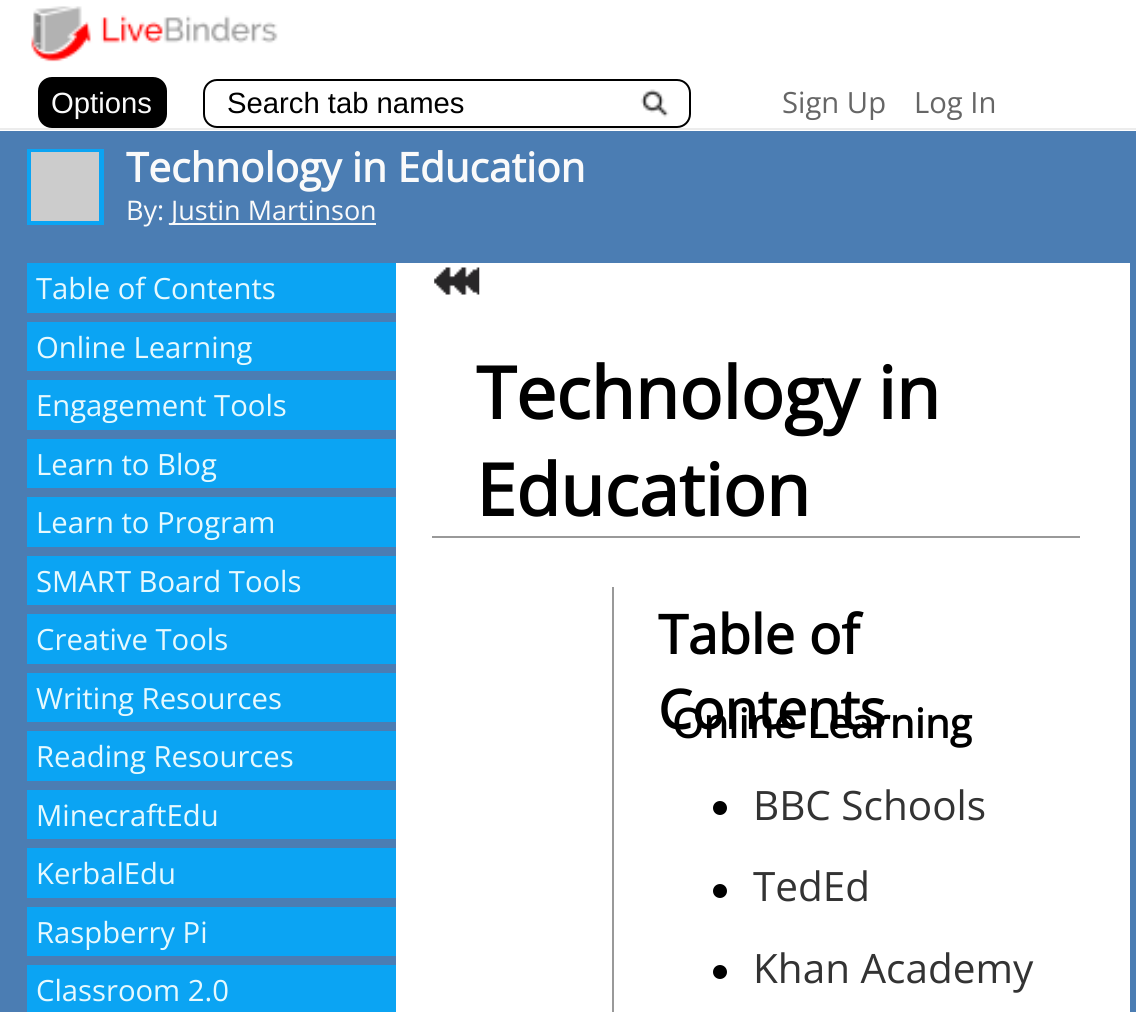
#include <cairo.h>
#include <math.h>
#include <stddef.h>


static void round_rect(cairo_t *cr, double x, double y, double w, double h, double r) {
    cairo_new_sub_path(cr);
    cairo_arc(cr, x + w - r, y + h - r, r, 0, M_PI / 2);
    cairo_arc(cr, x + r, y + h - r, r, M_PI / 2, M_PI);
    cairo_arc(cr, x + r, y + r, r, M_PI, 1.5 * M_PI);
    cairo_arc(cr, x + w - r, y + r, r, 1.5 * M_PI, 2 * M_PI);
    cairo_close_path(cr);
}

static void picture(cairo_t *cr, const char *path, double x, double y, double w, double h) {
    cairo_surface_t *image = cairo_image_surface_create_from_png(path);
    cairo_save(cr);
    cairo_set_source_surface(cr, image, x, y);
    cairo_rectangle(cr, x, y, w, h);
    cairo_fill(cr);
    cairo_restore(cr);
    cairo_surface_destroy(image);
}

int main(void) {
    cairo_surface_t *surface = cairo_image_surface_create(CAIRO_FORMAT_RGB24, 1136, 1012);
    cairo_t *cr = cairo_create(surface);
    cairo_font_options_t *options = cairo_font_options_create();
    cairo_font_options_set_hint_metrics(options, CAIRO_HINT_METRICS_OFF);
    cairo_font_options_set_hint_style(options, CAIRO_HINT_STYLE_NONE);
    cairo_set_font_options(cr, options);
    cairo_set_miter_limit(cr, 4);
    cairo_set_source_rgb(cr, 0.294, 0.49, 0.702);
    cairo_paint(cr);
    cairo_set_source_rgb(cr, 1, 1, 1);
    cairo_rectangle(cr, 0, 0, 1136, 131);
    cairo_fill(cr);
    cairo_set_source_rgb(cr, 0.922, 0.922, 0.922);
    cairo_rectangle(cr, 0, 128, 1136, 2);
    cairo_fill(cr);
    picture(cr, "img1.png", 31, 6, 247, 56);
    cairo_set_source_rgb(cr, 0, 0, 0);
    round_rect(cr, 39, 78, 127, 49, 13);
    cairo_fill_preserve(cr);
    cairo_stroke(cr);
    cairo_select_font_face(cr, "Liberation Sans", CAIRO_FONT_SLANT_NORMAL, CAIRO_FONT_WEIGHT_NORMAL);
    cairo_set_font_size(cr, 29.25);
    cairo_set_source_rgb(cr, 0.98, 0.98, 0.98);
    cairo_move_to(cr, 51, 113);
    cairo_show_text(cr, "Options");
    picture(cr, "img2.png", 640, 89, 29, 29);
    round_rect(cr, 204, 80, 486, 47, 13);
    cairo_set_source_rgb(cr, 0, 0, 0);
    cairo_stroke(cr);
    cairo_move_to(cr, 227, 113);
    cairo_show_text(cr, "Search tab names");
    cairo_select_font_face(cr, "Open Sans", CAIRO_FONT_SLANT_NORMAL, CAIRO_FONT_WEIGHT_NORMAL);
    cairo_set_source_rgb(cr, 0.4, 0.4, 0.4);
    cairo_move_to(cr, 782, 113);
    cairo_show_text(cr, "Sign Up");
    cairo_move_to(cr, 914, 113);
    cairo_show_text(cr, "Log In");
    cairo_set_source_rgb(cr, 0.043, 0.643, 0.953);
    cairo_rectangle(cr, 27, 149, 77, 76);
    cairo_fill(cr);
    cairo_set_source_rgb(cr, 0.8, 0.8, 0.8);
    cairo_rectangle(cr, 31, 152, 68, 69);
    cairo_fill(cr);
    cairo_select_font_face(cr, "Open Sans", CAIRO_FONT_SLANT_NORMAL, CAIRO_FONT_WEIGHT_BOLD);
    cairo_set_font_size(cr, 40.5);
    cairo_set_source_rgb(cr, 0.98, 0.98, 0.98);
    cairo_move_to(cr, 126, 182);
    cairo_show_text(cr, "Technology in Education");
    cairo_select_font_face(cr, "Open Sans", CAIRO_FONT_SLANT_NORMAL, CAIRO_FONT_WEIGHT_NORMAL);
    cairo_set_font_size(cr, 27);
    cairo_move_to(cr, 126, 220);
    cairo_show_text(cr, "By:");
    cairo_rectangle(cr, 171, 223, 205, 2);
    cairo_fill(cr);
    cairo_move_to(cr, 171, 220);
    cairo_show_text(cr, "Justin Martinson");
    cairo_set_source_rgb(cr, 0.043, 0.643, 0.953);
    cairo_rectangle(cr, 27, 263, 369, 50);
    cairo_fill(cr);
    cairo_set_font_size(cr, 29.25);
    cairo_set_source_rgb(cr, 0.902, 0.976, 0.996);
    cairo_move_to(cr, 36, 299);
    cairo_show_text(cr, "Table of Contents");
    cairo_set_source_rgb(cr, 0.043, 0.643, 0.953);
    cairo_rectangle(cr, 27, 322, 369, 49);
    cairo_fill(cr);
    cairo_set_source_rgb(cr, 0.902, 0.976, 0.996);
    cairo_move_to(cr, 36, 358);
    cairo_show_text(cr, "Online Learning");
    cairo_set_source_rgb(cr, 0.043, 0.643, 0.953);
    cairo_rectangle(cr, 27, 380, 369, 50);
    cairo_fill(cr);
    cairo_set_source_rgb(cr, 0.902, 0.976, 0.996);
    cairo_move_to(cr, 36, 416);
    cairo_show_text(cr, "Engagement Tools");
    cairo_set_source_rgb(cr, 0.043, 0.643, 0.953);
    cairo_rectangle(cr, 27, 439, 369, 49);
    cairo_fill(cr);
    cairo_set_source_rgb(cr, 0.902, 0.976, 0.996);
    cairo_move_to(cr, 36, 475);
    cairo_show_text(cr, "Learn to Blog");
    cairo_set_source_rgb(cr, 0.043, 0.643, 0.953);
    cairo_rectangle(cr, 27, 497, 369, 50);
    cairo_fill(cr);
    cairo_set_source_rgb(cr, 0.902, 0.976, 0.996);
    cairo_move_to(cr, 36, 533);
    cairo_show_text(cr, "Learn to Program");
    cairo_set_source_rgb(cr, 0.043, 0.643, 0.953);
    cairo_rectangle(cr, 27, 556, 369, 49);
    cairo_fill(cr);
    cairo_set_source_rgb(cr, 0.902, 0.976, 0.996);
    cairo_move_to(cr, 36, 592);
    cairo_show_text(cr, "SMART Board Tools");
    cairo_set_source_rgb(cr, 0.043, 0.643, 0.953);
    cairo_rectangle(cr, 27, 614, 369, 50);
    cairo_fill(cr);
    cairo_set_source_rgb(cr, 0.902, 0.976, 0.996);
    cairo_move_to(cr, 36, 650);
    cairo_show_text(cr, "Creative Tools");
    cairo_set_source_rgb(cr, 0.043, 0.643, 0.953);
    cairo_rectangle(cr, 27, 673, 369, 49);
    cairo_fill(cr);
    cairo_set_source_rgb(cr, 0.902, 0.976, 0.996);
    cairo_move_to(cr, 36, 709);
    cairo_show_text(cr, "Writing Resources");
    cairo_set_source_rgb(cr, 0.043, 0.643, 0.953);
    cairo_rectangle(cr, 27, 731, 369, 50);
    cairo_fill(cr);
    cairo_set_source_rgb(cr, 0.902, 0.976, 0.996);
    cairo_move_to(cr, 36, 767);
    cairo_show_text(cr, "Reading Resources");
    cairo_set_source_rgb(cr, 0.043, 0.643, 0.953);
    cairo_rectangle(cr, 27, 790, 369, 49);
    cairo_fill(cr);
    cairo_set_source_rgb(cr, 0.902, 0.976, 0.996);
    cairo_move_to(cr, 36, 826);
    cairo_show_text(cr, "MinecraftEdu");
    cairo_set_source_rgb(cr, 0.043, 0.643, 0.953);
    cairo_rectangle(cr, 27, 848, 369, 50);
    cairo_fill(cr);
    cairo_set_source_rgb(cr, 0.902, 0.976, 0.996);
    cairo_move_to(cr, 36, 884);
    cairo_show_text(cr, "KerbalEdu");
    cairo_set_source_rgb(cr, 0.043, 0.643, 0.953);
    cairo_rectangle(cr, 27, 907, 369, 49);
    cairo_fill(cr);
    cairo_set_source_rgb(cr, 0.902, 0.976, 0.996);
    cairo_move_to(cr, 36, 943);
    cairo_show_text(cr, "Raspberry Pi");
    cairo_set_source_rgb(cr, 0.043, 0.643, 0.953);
    cairo_rectangle(cr, 27, 965, 369, 47);
    cairo_fill(cr);
    cairo_set_source_rgb(cr, 0.902, 0.976, 0.996);
    cairo_move_to(cr, 36, 1001);
    cairo_show_text(cr, "Classroom 2.0");
    cairo_set_source_rgb(cr, 1, 1, 1);
    cairo_rectangle(cr, 396, 263, 734, 749);
    cairo_fill(cr);
    picture(cr, "img3.png", 434, 267, 46, 28);
    cairo_set_source_rgb(cr, 0.6, 0.6, 0.6);
    cairo_rectangle(cr, 432, 536, 648, 2);
    cairo_fill(cr);
    cairo_select_font_face(cr, "Open Sans", CAIRO_FONT_SLANT_NORMAL, CAIRO_FONT_WEIGHT_BOLD);
    cairo_set_font_size(cr, 72);
    cairo_set_source_rgb(cr, 0, 0, 0);
    cairo_move_to(cr, 476, 419);
    cairo_show_text(cr, "Technology in");
    cairo_move_to(cr, 476, 516);
    cairo_show_text(cr, "Education");
    cairo_set_source_rgb(cr, 0.6, 0.6, 0.6);
    cairo_rectangle(cr, 612, 587, 2, 425);
    cairo_fill(cr);
    cairo_set_font_size(cr, 54);
    cairo_set_source_rgb(cr, 0, 0, 0);
    cairo_move_to(cr, 658, 654);
    cairo_show_text(cr, "Table of");
    cairo_move_to(cr, 658, 729);
    cairo_show_text(cr, "Contents");
    cairo_set_font_size(cr, 40.5);
    cairo_move_to(cr, 672, 738);
    cairo_show_text(cr, "Online Learning");
    cairo_new_path(cr);
    cairo_arc(cr, 720, 808, 7, 0, 2 * M_PI);
    cairo_fill(cr);
    cairo_select_font_face(cr, "Open Sans", CAIRO_FONT_SLANT_NORMAL, CAIRO_FONT_WEIGHT_NORMAL);
    cairo_set_source_rgb(cr, 0.2, 0.2, 0.2);
    cairo_move_to(cr, 753, 820);
    cairo_show_text(cr, "BBC Schools");
    cairo_set_source_rgb(cr, 0, 0, 0);
    cairo_new_path(cr);
    cairo_arc(cr, 720, 891, 7, 0, 2 * M_PI);
    cairo_fill(cr);
    cairo_set_source_rgb(cr, 0.2, 0.2, 0.2);
    cairo_move_to(cr, 753, 901);
    cairo_show_text(cr, "TedEd");
    cairo_set_source_rgb(cr, 0, 0, 0);
    cairo_new_path(cr);
    cairo_arc(cr, 720, 972, 7, 0, 2 * M_PI);
    cairo_fill(cr);
    cairo_set_source_rgb(cr, 0.2, 0.2, 0.2);
    cairo_move_to(cr, 753, 983);
    cairo_show_text(cr, "Khan Academy");
    cairo_surface_write_to_png(surface, "page.png");
    cairo_font_options_destroy(options);
    cairo_destroy(cr);
    cairo_surface_destroy(surface);
    return 0;
}
